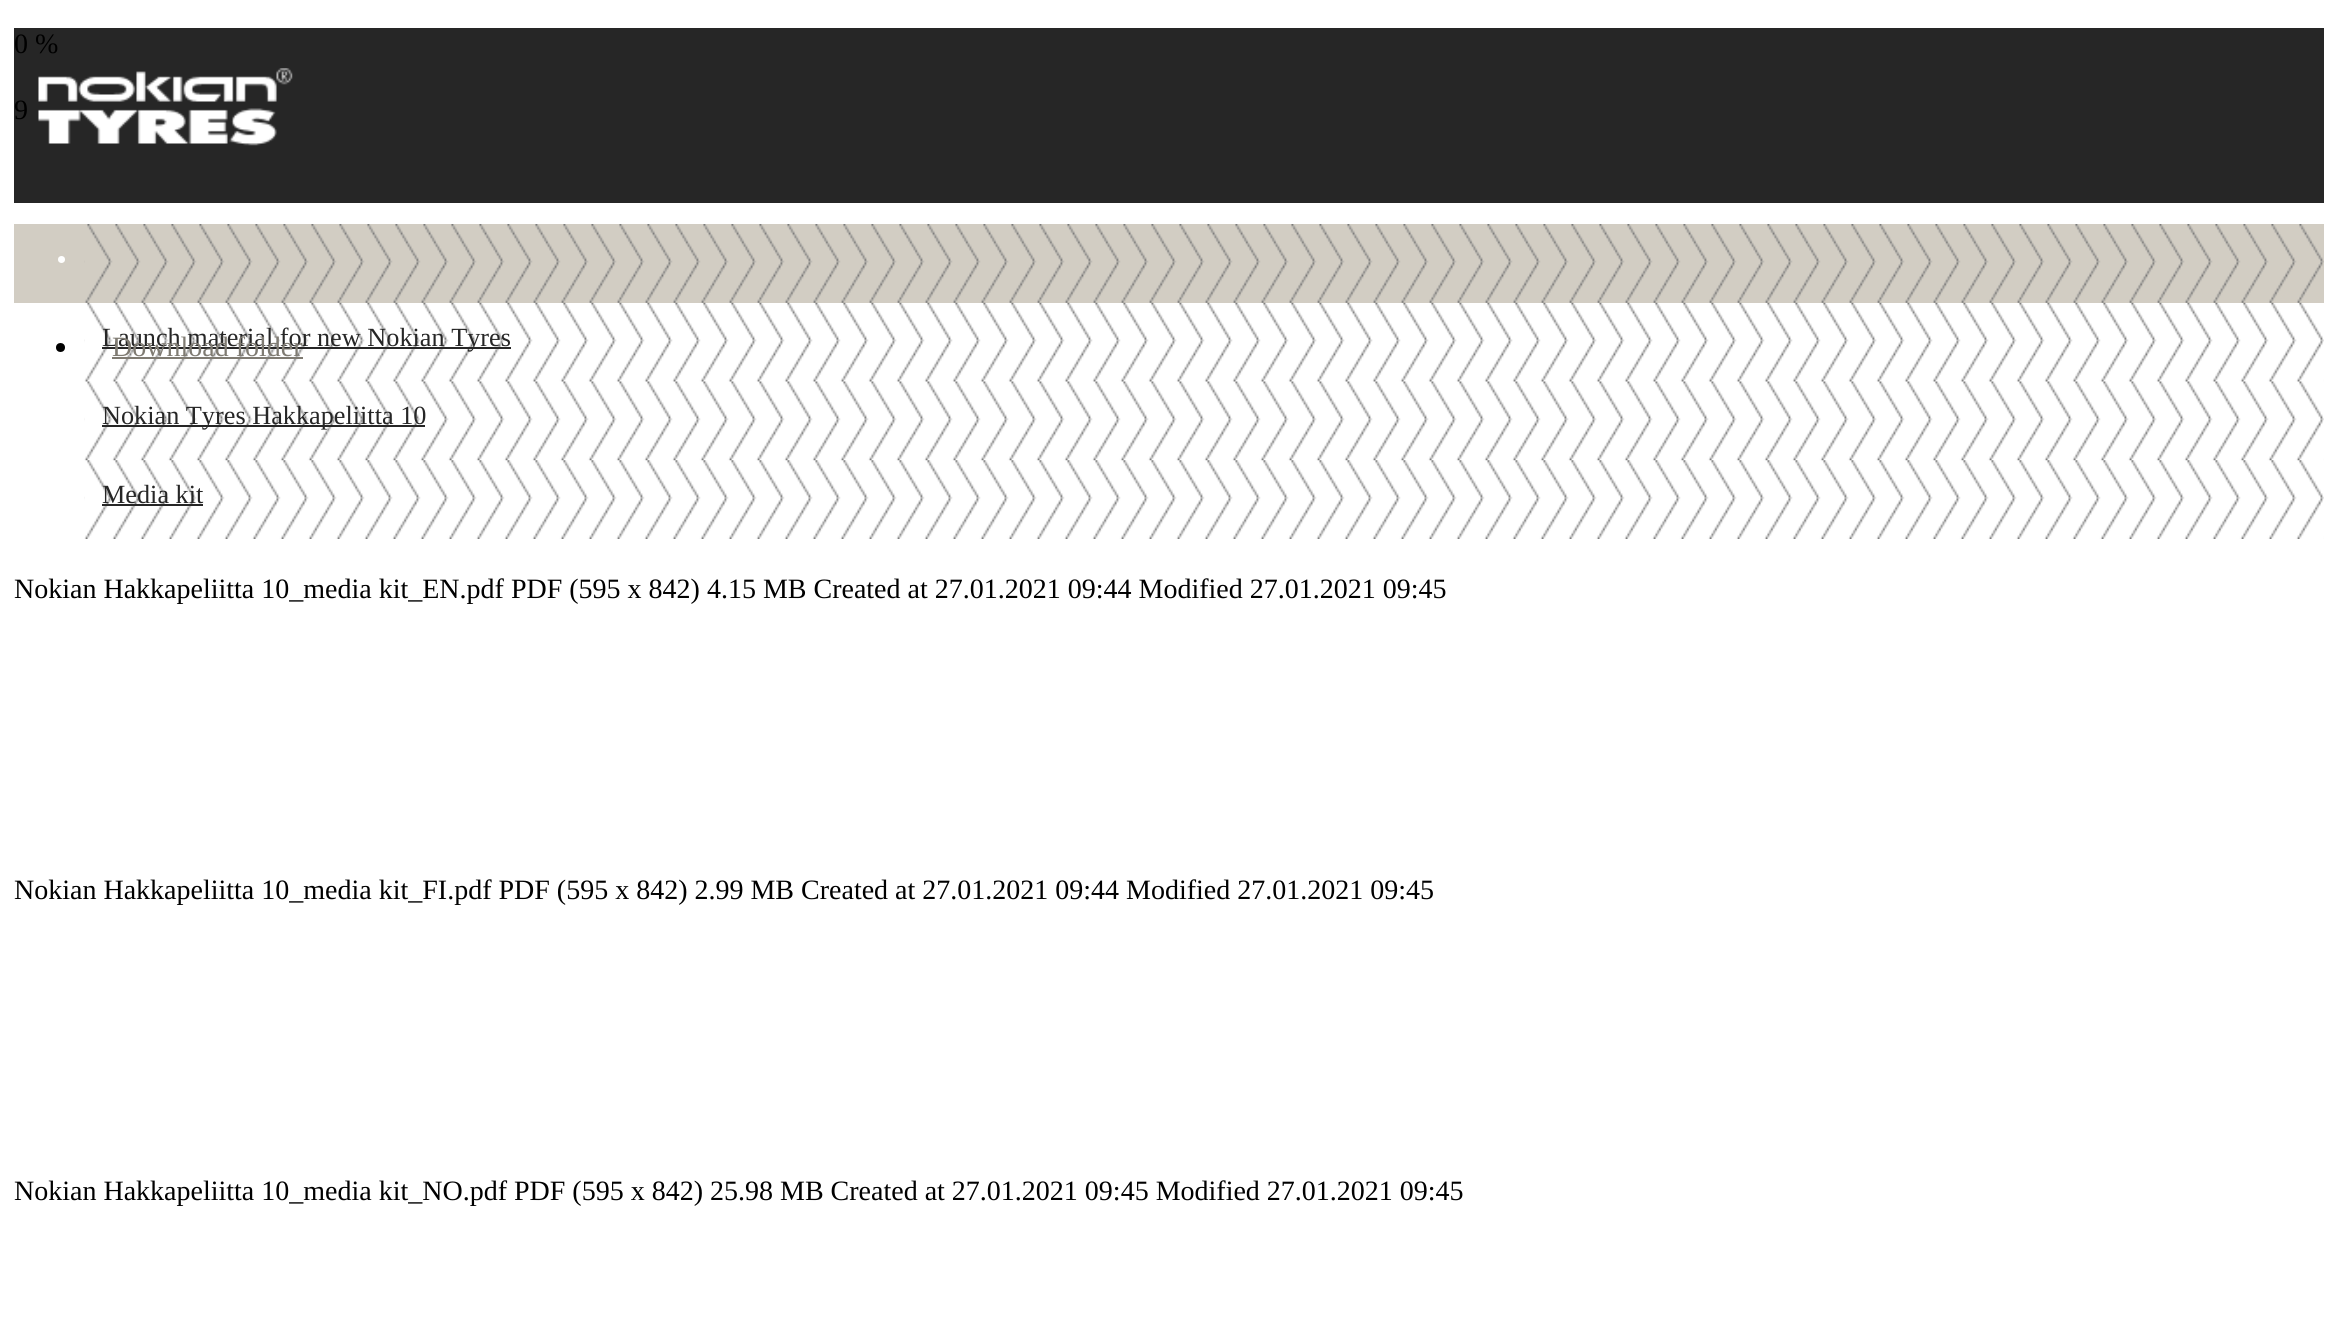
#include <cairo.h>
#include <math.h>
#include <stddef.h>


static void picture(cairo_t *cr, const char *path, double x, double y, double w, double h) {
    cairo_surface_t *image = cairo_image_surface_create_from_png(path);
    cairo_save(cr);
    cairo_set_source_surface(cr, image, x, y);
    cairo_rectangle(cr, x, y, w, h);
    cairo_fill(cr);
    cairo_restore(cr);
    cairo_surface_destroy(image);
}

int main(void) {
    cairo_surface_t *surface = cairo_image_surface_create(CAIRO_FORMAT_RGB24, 2337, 1327);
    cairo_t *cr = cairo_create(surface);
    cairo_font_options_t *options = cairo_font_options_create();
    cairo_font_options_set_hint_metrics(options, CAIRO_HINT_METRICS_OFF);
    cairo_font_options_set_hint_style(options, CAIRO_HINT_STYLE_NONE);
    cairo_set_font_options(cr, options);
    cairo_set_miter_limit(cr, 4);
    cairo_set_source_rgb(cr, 1, 1, 1);
    cairo_paint(cr);
    cairo_set_source_rgb(cr, 0.149, 0.149, 0.149);
    cairo_rectangle(cr, 14, 28, 2310, 175);
    cairo_fill(cr);
    cairo_select_font_face(cr, "Liberation Serif", CAIRO_FONT_SLANT_NORMAL, CAIRO_FONT_WEIGHT_NORMAL);
    cairo_set_font_size(cr, 28);
    cairo_set_source_rgb(cr, 0, 0, 0);
    cairo_move_to(cr, 14, 53);
    cairo_show_text(cr, "0 %");
    cairo_move_to(cr, 14, 119);
    cairo_show_text(cr, "9");
    picture(cr, "img1.png", 38, 68, 255, 78);
    cairo_set_source_rgb(cr, 0.824, 0.804, 0.765);
    cairo_rectangle(cr, 14, 224, 2310, 79);
    cairo_fill(cr);
    picture(cr, "img2.png", 84, 224, 2240, 79);
    cairo_set_source_rgb(cr, 1, 1, 1);
    cairo_arc(cr, 61.5, 259.5, 3.5, 0, 2 * M_PI);
    cairo_fill(cr);
    picture(cr, "img3.png", 84, 302, 2240, 80);
    cairo_set_source_rgb(cr, 0.149, 0.149, 0.149);
    cairo_rectangle(cr, 102, 347, 409, 2);
    cairo_fill(cr);
    cairo_set_font_size(cr, 26.25);
    cairo_move_to(cr, 102, 346);
    cairo_show_text(cr, "Launch material for new Nokian Tyres");
    picture(cr, "img4.png", 84, 381, 2240, 80);
    cairo_rectangle(cr, 102, 425, 323, 2);
    cairo_fill(cr);
    cairo_move_to(cr, 102, 424);
    cairo_show_text(cr, "Nokian Tyres Hakkapeliitta 10");
    picture(cr, "img5.png", 84, 460, 2240, 79);
    cairo_move_to(cr, 102, 503);
    cairo_show_text(cr, "Media kit");
    cairo_rectangle(cr, 102, 504, 101, 2);
    cairo_fill(cr);
    cairo_set_source_rgb(cr, 0, 0, 0);
    cairo_arc(cr, 60.5, 347.5, 4.5, 0, 2 * M_PI);
    cairo_fill(cr);
    cairo_set_font_size(cr, 28);
    cairo_set_source_rgb(cr, 0.498, 0.482, 0.447);
    cairo_move_to(cr, 112, 356);
    cairo_show_text(cr, "Download folder");
    cairo_rectangle(cr, 112, 357, 191, 2);
    cairo_fill(cr);
    cairo_set_source_rgb(cr, 0, 0, 0);
    cairo_move_to(cr, 14, 598);
    cairo_show_text(cr, "Nokian Hakkapeliitta 10_media kit_EN.pdf PDF (595 x 842) 4.15 MB Created at 27.01.2021 09:44 Modified 27.01.2021 09:45");
    cairo_move_to(cr, 14, 899);
    cairo_show_text(cr, "Nokian Hakkapeliitta 10_media kit_FI.pdf PDF (595 x 842) 2.99 MB Created at 27.01.2021 09:44 Modified 27.01.2021 09:45");
    cairo_move_to(cr, 14, 1200);
    cairo_show_text(cr, "Nokian Hakkapeliitta 10_media kit_NO.pdf PDF (595 x 842) 25.98 MB Created at 27.01.2021 09:45 Modified 27.01.2021 09:45");
    cairo_surface_write_to_png(surface, "page.png");
    cairo_font_options_destroy(options);
    cairo_destroy(cr);
    cairo_surface_destroy(surface);
    return 0;
}
